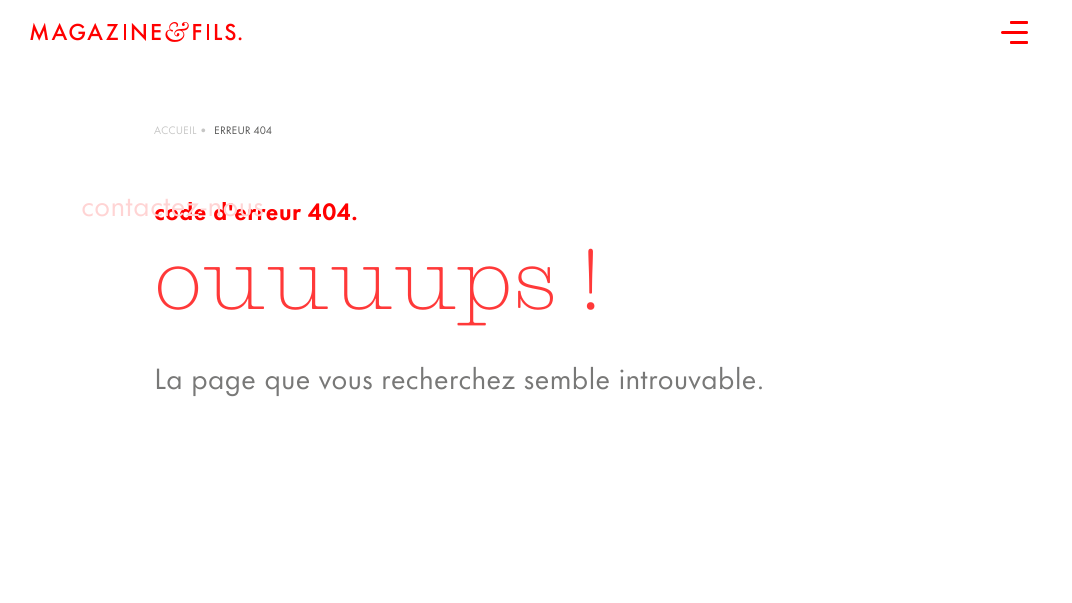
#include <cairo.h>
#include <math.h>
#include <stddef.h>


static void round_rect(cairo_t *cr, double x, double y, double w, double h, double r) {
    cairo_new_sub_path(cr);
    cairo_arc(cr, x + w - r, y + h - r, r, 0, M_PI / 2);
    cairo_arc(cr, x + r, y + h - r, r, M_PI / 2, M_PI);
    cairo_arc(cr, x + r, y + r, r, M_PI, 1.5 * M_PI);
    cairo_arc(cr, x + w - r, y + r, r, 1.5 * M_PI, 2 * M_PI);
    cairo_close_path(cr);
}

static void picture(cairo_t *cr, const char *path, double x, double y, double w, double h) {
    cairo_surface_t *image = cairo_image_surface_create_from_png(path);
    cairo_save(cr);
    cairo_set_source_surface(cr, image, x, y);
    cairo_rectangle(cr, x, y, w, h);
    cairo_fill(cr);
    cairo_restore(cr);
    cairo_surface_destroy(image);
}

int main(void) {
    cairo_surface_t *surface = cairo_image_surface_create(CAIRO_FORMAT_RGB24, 1072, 603);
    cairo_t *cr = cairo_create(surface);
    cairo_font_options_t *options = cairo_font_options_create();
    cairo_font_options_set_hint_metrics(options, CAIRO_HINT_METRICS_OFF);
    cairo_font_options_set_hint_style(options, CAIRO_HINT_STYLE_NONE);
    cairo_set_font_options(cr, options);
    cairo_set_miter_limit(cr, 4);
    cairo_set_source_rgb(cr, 1, 1, 1);
    cairo_paint(cr);
    cairo_select_font_face(cr, "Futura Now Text", CAIRO_FONT_SLANT_NORMAL, CAIRO_FONT_WEIGHT_NORMAL);
    cairo_set_font_size(cr, 10);
    cairo_set_source_rgb(cr, 0.776, 0.776, 0.773);
    cairo_move_to(cr, 154, 134);
    cairo_show_text(cr, "ACCUEIL");
    cairo_set_font_size(cr, 15);
    cairo_move_to(cr, 200, 136);
    cairo_show_text(cr, "•");
    cairo_set_font_size(cr, 10);
    cairo_set_source_rgb(cr, 0.318, 0.318, 0.314);
    cairo_move_to(cr, 214, 134);
    cairo_show_text(cr, "ERREUR 404");
    cairo_select_font_face(cr, "Futura Now Text", CAIRO_FONT_SLANT_NORMAL, CAIRO_FONT_WEIGHT_BOLD);
    cairo_set_font_size(cr, 22);
    cairo_set_source_rgb(cr, 1, 0, 0);
    cairo_move_to(cr, 154, 220);
    cairo_show_text(cr, "code d'erreur 404.");
    cairo_select_font_face(cr, "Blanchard", CAIRO_FONT_SLANT_NORMAL, CAIRO_FONT_WEIGHT_NORMAL);
    cairo_set_font_size(cr, 80);
    cairo_set_source_rgb(cr, 1, 0.224, 0.224);
    cairo_move_to(cr, 154, 309);
    cairo_show_text(cr, "ouuuups !");
    cairo_select_font_face(cr, "Futura Now Text", CAIRO_FONT_SLANT_NORMAL, CAIRO_FONT_WEIGHT_NORMAL);
    cairo_set_font_size(cr, 27);
    cairo_set_source_rgb(cr, 0.471, 0.471, 0.467);
    cairo_move_to(cr, 154, 389);
    cairo_show_text(cr, "La page que vous recherchez semble introuvable.");
    picture(cr, "img1.png", 30, 22, 212, 20);
    cairo_set_source_rgb(cr, 1, 0, 0);
    round_rect(cr, 1010, 21, 18, 3, 1);
    cairo_fill(cr);
    round_rect(cr, 1001, 31, 27, 3, 1.5);
    cairo_fill(cr);
    round_rect(cr, 1010, 41, 18, 3, 1);
    cairo_fill(cr);
    cairo_set_source_rgb(cr, 1, 0.831, 0.831);
    cairo_move_to(cr, 81, 216);
    cairo_show_text(cr, "contactez-nous");
    cairo_surface_write_to_png(surface, "page.png");
    cairo_font_options_destroy(options);
    cairo_destroy(cr);
    cairo_surface_destroy(surface);
    return 0;
}
